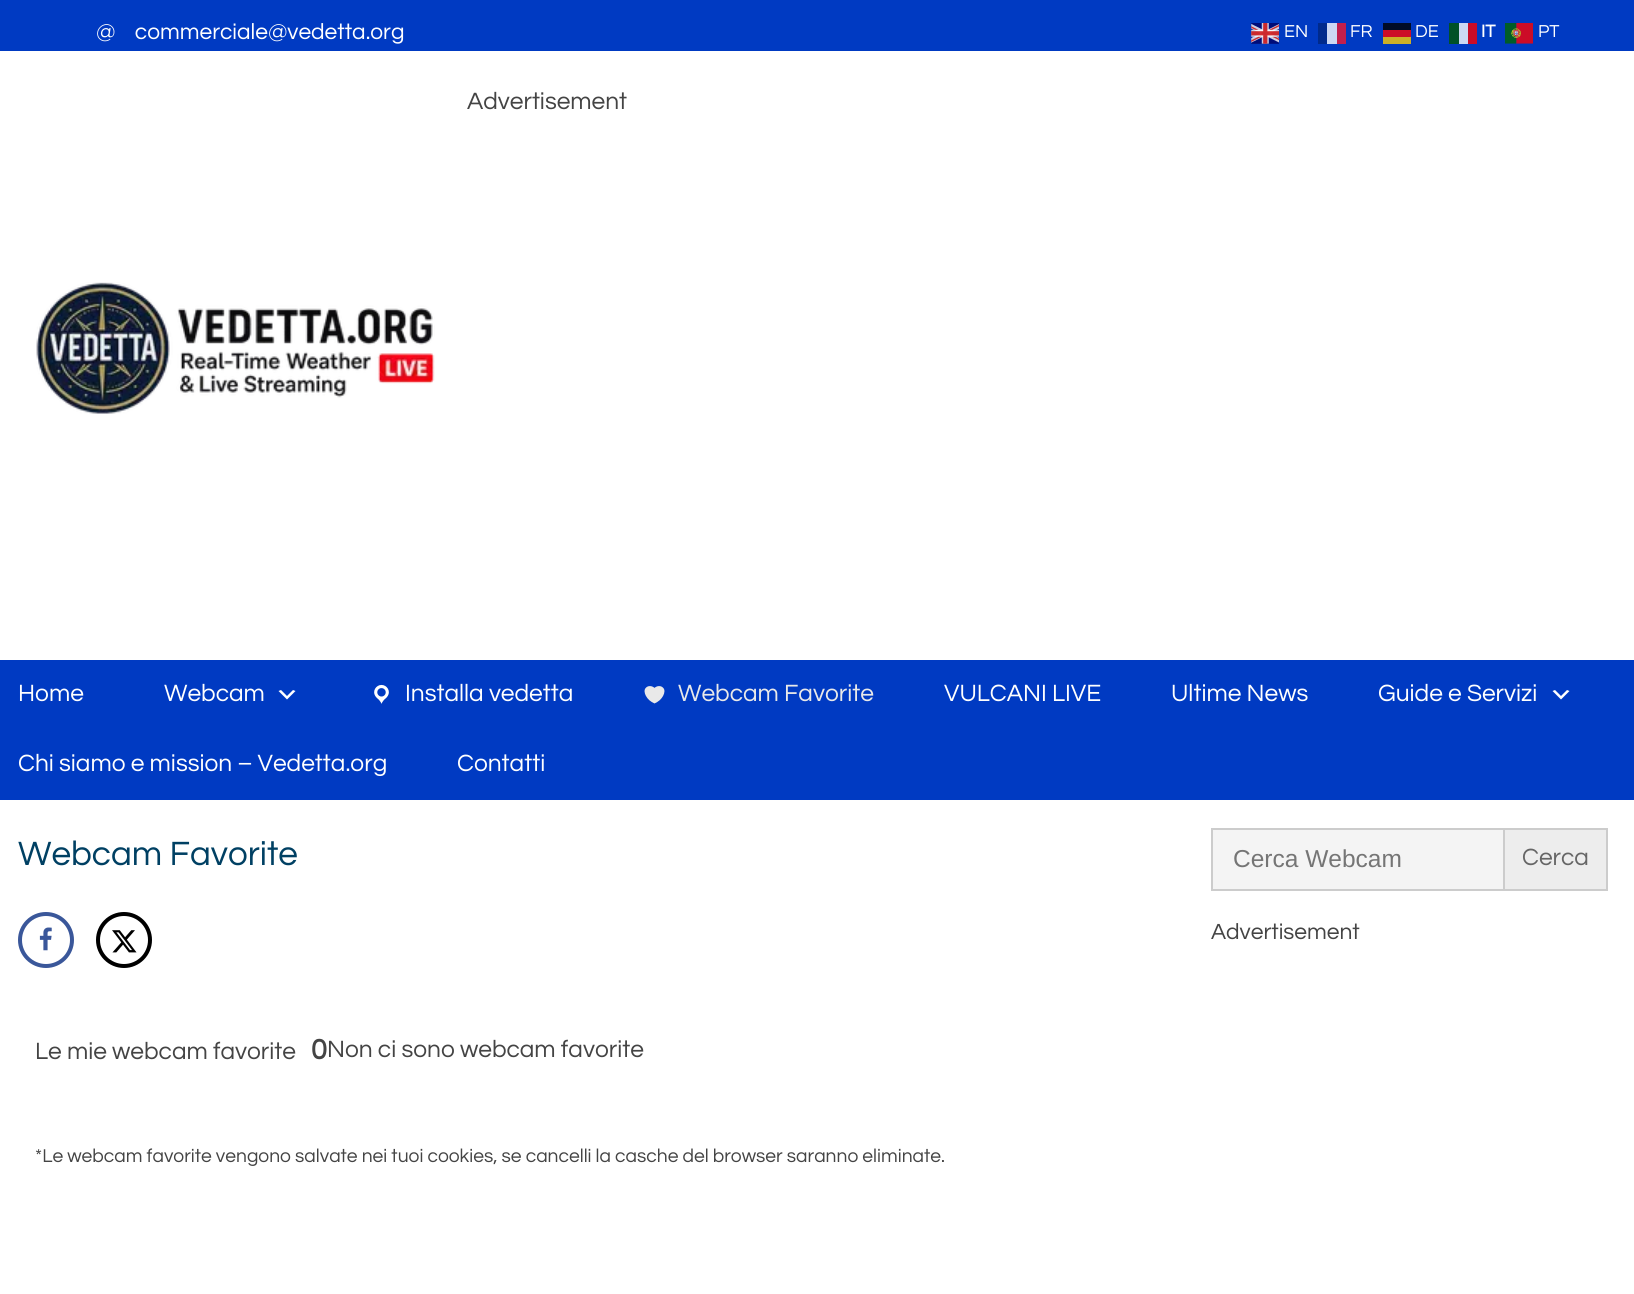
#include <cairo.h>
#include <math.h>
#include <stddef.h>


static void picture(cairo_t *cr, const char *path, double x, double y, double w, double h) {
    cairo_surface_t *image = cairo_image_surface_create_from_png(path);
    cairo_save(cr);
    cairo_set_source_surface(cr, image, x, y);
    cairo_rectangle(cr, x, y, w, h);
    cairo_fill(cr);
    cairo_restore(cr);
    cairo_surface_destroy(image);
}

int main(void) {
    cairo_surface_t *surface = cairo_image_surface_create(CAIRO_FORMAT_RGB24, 1634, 1294);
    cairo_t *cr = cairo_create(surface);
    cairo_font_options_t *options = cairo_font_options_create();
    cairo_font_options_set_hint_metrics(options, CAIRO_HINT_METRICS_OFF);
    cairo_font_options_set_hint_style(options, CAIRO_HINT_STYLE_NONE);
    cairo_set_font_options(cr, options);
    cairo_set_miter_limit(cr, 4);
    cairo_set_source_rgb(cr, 1, 1, 1);
    cairo_paint(cr);
    cairo_set_source_rgb(cr, 0, 0.227, 0.761);
    cairo_rectangle(cr, 0, 0, 1634, 51);
    cairo_fill(cr);
    cairo_select_font_face(cr, "Questrial", CAIRO_FONT_SLANT_NORMAL, CAIRO_FONT_WEIGHT_NORMAL);
    cairo_set_font_size(cr, 22.75);
    cairo_set_source_rgb(cr, 1, 1, 1);
    cairo_move_to(cr, 96, 39);
    cairo_show_text(cr, "@    commerciale@vedetta.org");
    picture(cr, "img1.png", 1251, 23, 28, 21);
    cairo_set_font_size(cr, 18);
    cairo_move_to(cr, 1284, 37);
    cairo_show_text(cr, "EN");
    cairo_move_to(cr, 1350, 37);
    cairo_show_text(cr, "FR");
    cairo_set_source_rgb(cr, 0.8, 0.847, 0.953);
    cairo_rectangle(cr, 1327, 23, 10, 21);
    cairo_fill(cr);
    cairo_set_source_rgb(cr, 0, 0.165, 0.549);
    cairo_rectangle(cr, 1318, 23, 9, 21);
    cairo_fill(cr);
    cairo_set_source_rgb(cr, 0.761, 0.122, 0.302);
    cairo_rectangle(cr, 1337, 23, 9, 21);
    cairo_fill(cr);
    cairo_set_source_rgb(cr, 1, 1, 1);
    cairo_move_to(cr, 1415, 37);
    cairo_show_text(cr, "DE");
    cairo_set_source_rgb(cr, 0.8, 0.686, 0.153);
    cairo_rectangle(cr, 1383, 37, 28, 7);
    cairo_fill(cr);
    cairo_set_source_rgb(cr, 0, 0.047, 0.153);
    cairo_rectangle(cr, 1383, 23, 28, 7);
    cairo_fill(cr);
    cairo_set_source_rgb(cr, 0.8, 0.047, 0.153);
    cairo_rectangle(cr, 1383, 30, 28, 7);
    cairo_fill(cr);
    cairo_select_font_face(cr, "Questrial", CAIRO_FONT_SLANT_NORMAL, CAIRO_FONT_WEIGHT_BOLD);
    cairo_set_source_rgb(cr, 1, 1, 1);
    cairo_move_to(cr, 1481, 37);
    cairo_show_text(cr, "IT");
    cairo_set_source_rgb(cr, 0.8, 0.847, 0.953);
    cairo_rectangle(cr, 1459, 23, 9, 21);
    cairo_fill(cr);
    cairo_set_source_rgb(cr, 0, 0.318, 0.153);
    cairo_rectangle(cr, 1449, 23, 10, 21);
    cairo_fill(cr);
    cairo_set_source_rgb(cr, 0.792, 0.047, 0.153);
    cairo_rectangle(cr, 1468, 23, 9, 21);
    cairo_fill(cr);
    picture(cr, "img2.png", 1505, 23, 28, 21);
    cairo_select_font_face(cr, "Questrial", CAIRO_FONT_SLANT_NORMAL, CAIRO_FONT_WEIGHT_NORMAL);
    cairo_set_source_rgb(cr, 1, 1, 1);
    cairo_move_to(cr, 1538, 37);
    cairo_show_text(cr, "PT");
    cairo_set_font_size(cr, 24.5);
    cairo_set_source_rgb(cr, 0.267, 0.267, 0.267);
    cairo_move_to(cr, 467, 109);
    cairo_show_text(cr, "Advertisement");
    picture(cr, "img3.png", 36, 282, 399, 132);
    cairo_set_source_rgb(cr, 0, 0.227, 0.761);
    cairo_rectangle(cr, 0, 660, 1634, 140);
    cairo_fill(cr);
    cairo_set_source_rgb(cr, 1, 1, 1);
    cairo_move_to(cr, 18, 701);
    cairo_show_text(cr, "Home");
    cairo_move_to(cr, 164, 701);
    cairo_show_text(cr, "Webcam");
    cairo_new_path(cr);
    cairo_move_to(cr, 281, 690);
    cairo_line_to(cr, 287, 696);
    cairo_line_to(cr, 293, 690);
    cairo_line_to(cr, 295.5, 691);
    cairo_line_to(cr, 287, 699.5);
    cairo_line_to(cr, 278.5, 691);
    cairo_close_path(cr);
    cairo_fill(cr);
    picture(cr, "img4.png", 374, 684, 15, 20);
    cairo_move_to(cr, 405, 701);
    cairo_show_text(cr, "Installa vedetta");
    picture(cr, "img5.png", 644, 686, 21, 18);
    cairo_set_source_rgb(cr, 0.914, 0.914, 0.914);
    cairo_move_to(cr, 678, 701);
    cairo_show_text(cr, "Webcam Favorite");
    cairo_set_source_rgb(cr, 1, 1, 1);
    cairo_move_to(cr, 944, 701);
    cairo_show_text(cr, "VULCANI LIVE");
    cairo_move_to(cr, 1171, 701);
    cairo_show_text(cr, "Ultime News");
    cairo_move_to(cr, 1378, 701);
    cairo_show_text(cr, "Guide e Servizi");
    cairo_new_path(cr);
    cairo_move_to(cr, 1555, 690);
    cairo_line_to(cr, 1561, 696);
    cairo_line_to(cr, 1567, 690);
    cairo_line_to(cr, 1569.5, 691);
    cairo_line_to(cr, 1561, 699.5);
    cairo_line_to(cr, 1552.5, 691);
    cairo_close_path(cr);
    cairo_fill(cr);
    cairo_move_to(cr, 18, 771);
    cairo_show_text(cr, "Chi siamo e mission – Vedetta.org");
    cairo_move_to(cr, 457, 771);
    cairo_show_text(cr, "Contatti");
    cairo_set_font_size(cr, 35);
    cairo_set_source_rgb(cr, 0, 0.251, 0.388);
    cairo_move_to(cr, 18, 865);
    cairo_show_text(cr, "Webcam Favorite");
    cairo_new_path(cr);
    cairo_arc(cr, 46, 940, 26, 0, 2 * M_PI);
    cairo_set_source_rgb(cr, 0.227, 0.341, 0.604);
    cairo_set_line_width(cr, 4);
    cairo_stroke(cr);
    picture(cr, "img6.png", 39, 927, 13, 24);
    cairo_arc(cr, 124, 940, 26, 0, 2 * M_PI);
    cairo_set_source_rgb(cr, 0, 0, 0);
    cairo_stroke(cr);
    picture(cr, "img7.png", 112, 930, 25, 23);
    cairo_set_font_size(cr, 24.5);
    cairo_set_source_rgb(cr, 0.267, 0.267, 0.267);
    cairo_move_to(cr, 35, 1059);
    cairo_show_text(cr, "Le mie webcam favorite");
    cairo_select_font_face(cr, "Questrial", CAIRO_FONT_SLANT_NORMAL, CAIRO_FONT_WEIGHT_BOLD);
    cairo_set_font_size(cr, 29);
    cairo_move_to(cr, 311, 1059);
    cairo_show_text(cr, "0");
    cairo_select_font_face(cr, "Questrial", CAIRO_FONT_SLANT_NORMAL, CAIRO_FONT_WEIGHT_NORMAL);
    cairo_set_font_size(cr, 24.5);
    cairo_move_to(cr, 327, 1057);
    cairo_show_text(cr, "Non ci sono webcam favorite");
    cairo_set_font_size(cr, 19.25);
    cairo_move_to(cr, 35, 1162);
    cairo_show_text(cr, "*Le webcam favorite vengono salvate nei tuoi cookies, se cancelli la casche del browser saranno eliminate.");
    cairo_set_source_rgb(cr, 0.957, 0.957, 0.957);
    cairo_rectangle(cr, 1213, 830, 290, 59);
    cairo_fill(cr);
    cairo_rectangle(cr, 1212, 829, 395, 61);
    cairo_set_source_rgb(cr, 0.8, 0.8, 0.8);
    cairo_set_line_width(cr, 2);
    cairo_stroke(cr);
    cairo_select_font_face(cr, "Liberation Sans", CAIRO_FONT_SLANT_NORMAL, CAIRO_FONT_WEIGHT_NORMAL);
    cairo_set_font_size(cr, 24.5);
    cairo_set_source_rgb(cr, 0.459, 0.459, 0.459);
    cairo_move_to(cr, 1233, 867);
    cairo_show_text(cr, "Cerca Webcam");
    cairo_set_source_rgb(cr, 0.929, 0.929, 0.929);
    cairo_rectangle(cr, 1504, 829, 103, 61);
    cairo_fill_preserve(cr);
    cairo_set_source_rgb(cr, 0.8, 0.8, 0.8);
    cairo_stroke(cr);
    cairo_select_font_face(cr, "Questrial", CAIRO_FONT_SLANT_NORMAL, CAIRO_FONT_WEIGHT_NORMAL);
    cairo_set_source_rgb(cr, 0.4, 0.4, 0.4);
    cairo_move_to(cr, 1522, 865);
    cairo_show_text(cr, "Cerca");
    cairo_set_font_size(cr, 22.75);
    cairo_set_source_rgb(cr, 0.267, 0.267, 0.267);
    cairo_move_to(cr, 1211, 939);
    cairo_show_text(cr, "Advertisement");
    cairo_surface_write_to_png(surface, "page.png");
    cairo_font_options_destroy(options);
    cairo_destroy(cr);
    cairo_surface_destroy(surface);
    return 0;
}
